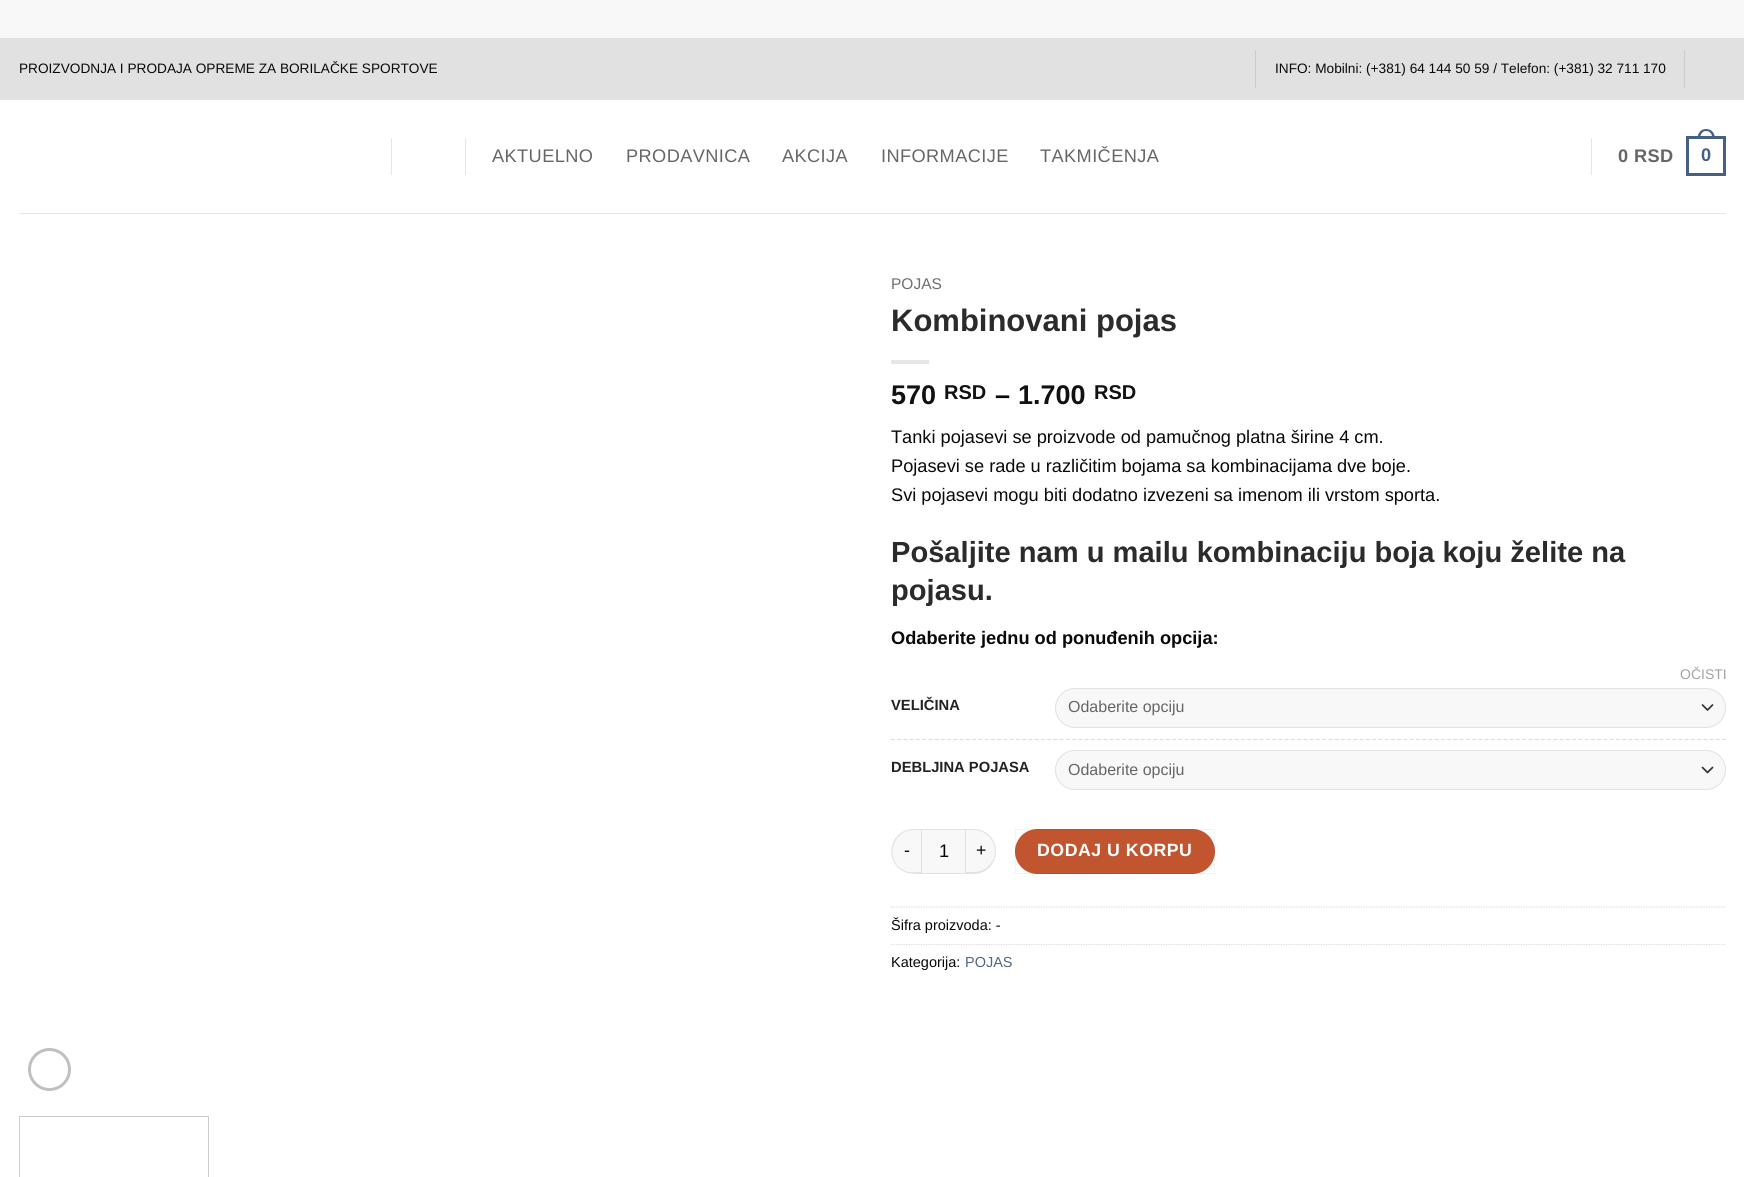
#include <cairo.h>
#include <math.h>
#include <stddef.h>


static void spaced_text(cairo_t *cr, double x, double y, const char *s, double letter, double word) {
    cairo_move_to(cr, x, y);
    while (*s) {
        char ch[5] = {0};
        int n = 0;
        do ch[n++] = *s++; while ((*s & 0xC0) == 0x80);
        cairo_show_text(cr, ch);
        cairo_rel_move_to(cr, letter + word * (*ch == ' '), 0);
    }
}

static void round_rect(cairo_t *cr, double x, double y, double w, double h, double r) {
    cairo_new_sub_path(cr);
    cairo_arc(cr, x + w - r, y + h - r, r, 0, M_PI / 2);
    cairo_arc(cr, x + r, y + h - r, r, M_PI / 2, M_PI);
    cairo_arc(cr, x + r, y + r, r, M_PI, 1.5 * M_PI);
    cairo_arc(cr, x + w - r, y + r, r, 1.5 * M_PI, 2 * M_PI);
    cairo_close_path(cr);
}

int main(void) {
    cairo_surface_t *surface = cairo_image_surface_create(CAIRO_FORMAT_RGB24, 1744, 1177);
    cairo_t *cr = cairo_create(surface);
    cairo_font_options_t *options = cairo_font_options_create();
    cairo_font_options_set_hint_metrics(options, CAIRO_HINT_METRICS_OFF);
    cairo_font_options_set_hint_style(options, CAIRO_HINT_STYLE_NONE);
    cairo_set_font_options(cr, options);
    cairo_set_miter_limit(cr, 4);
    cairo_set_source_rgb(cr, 0.969, 0.969, 0.969);
    cairo_paint(cr);
    cairo_set_source_rgb(cr, 1, 1, 1);
    cairo_rectangle(cr, 0, 100, 1744, 1077);
    cairo_fill(cr);
    cairo_set_source_rgb(cr, 0.886, 0.882, 0.882);
    cairo_rectangle(cr, 0, 38, 1744, 62);
    cairo_fill(cr);
    cairo_select_font_face(cr, "Liberation Sans", CAIRO_FONT_SLANT_NORMAL, CAIRO_FONT_WEIGHT_NORMAL);
    cairo_set_font_size(cr, 13.65);
    cairo_set_source_rgb(cr, 0.039, 0.039, 0.039);
    cairo_move_to(cr, 19, 73);
    cairo_show_text(cr, "PROIZVODNJA I PRODAJA OPREME ZA BORILAČKE SPORTOVE");
    cairo_set_source_rgb(cr, 0.796, 0.796, 0.796);
    cairo_rectangle(cr, 1255, 50, 1, 38);
    cairo_fill(cr);
    cairo_set_source_rgb(cr, 0.039, 0.039, 0.039);
    cairo_move_to(cr, 1275, 73);
    cairo_show_text(cr, "INFO: Mobilni: (+381) 64 144 50 59 / Telefon: (+381) 32 711 170");
    cairo_set_source_rgb(cr, 0.796, 0.796, 0.796);
    cairo_rectangle(cr, 1684, 50, 1, 38);
    cairo_fill(cr);
    cairo_set_source_rgb(cr, 0.902, 0.902, 0.902);
    cairo_rectangle(cr, 391, 138, 1, 37);
    cairo_fill(cr);
    cairo_rectangle(cr, 465, 138, 1, 37);
    cairo_fill(cr);
    cairo_set_font_size(cr, 18.2);
    cairo_set_source_rgb(cr, 0.4, 0.4, 0.4);
    spaced_text(cr, 492, 162, "AKTUELNO", 0.4, 0);
    spaced_text(cr, 626, 162, "PRODAVNICA", 0.4, 0);
    spaced_text(cr, 782, 162, "AKCIJA", 0.4, 0);
    spaced_text(cr, 881, 162, "INFORMACIJE", 0.4, 0);
    spaced_text(cr, 1040, 162, "TAKMIČENJA", 0.4, 0);
    cairo_set_source_rgb(cr, 0.902, 0.902, 0.902);
    cairo_rectangle(cr, 1591, 138, 1, 37);
    cairo_fill(cr);
    cairo_select_font_face(cr, "Liberation Sans", CAIRO_FONT_SLANT_NORMAL, CAIRO_FONT_WEIGHT_BOLD);
    cairo_set_source_rgb(cr, 0.4, 0.4, 0.4);
    spaced_text(cr, 1618, 162, "0 RSD", 0.4, 0);
    cairo_rectangle(cr, 1687.5, 137.5, 37, 37);
    cairo_set_source_rgb(cr, 0.267, 0.376, 0.518);
    cairo_set_line_width(cr, 3);
    cairo_stroke(cr);
    cairo_set_fill_rule(cr, CAIRO_FILL_RULE_EVEN_ODD);
    cairo_new_path(cr);
    cairo_move_to(cr, 1706, 129);
    cairo_curve_to(cr, 1712, 129, 1715, 133.5, 1715, 139);
    cairo_line_to(cr, 1697.5, 139);
    cairo_curve_to(cr, 1697.5, 133.5, 1700.5, 129, 1706, 129);
    cairo_close_path(cr);
    cairo_move_to(cr, 1706, 131);
    cairo_curve_to(cr, 1710.5, 131, 1712.5, 135, 1712.5, 139);
    cairo_line_to(cr, 1700, 139);
    cairo_curve_to(cr, 1700, 135, 1702, 131, 1706, 131);
    cairo_close_path(cr);
    cairo_fill(cr);
    spaced_text(cr, 1701, 161, "0", 0.4, 0);
    cairo_set_source_rgb(cr, 0.906, 0.906, 0.906);
    cairo_rectangle(cr, 19, 213, 1707, 1);
    cairo_fill(cr);
    cairo_select_font_face(cr, "Liberation Sans", CAIRO_FONT_SLANT_NORMAL, CAIRO_FONT_WEIGHT_NORMAL);
    cairo_set_font_size(cr, 15.5);
    cairo_set_source_rgb(cr, 0.431, 0.431, 0.431);
    cairo_move_to(cr, 891, 289);
    cairo_show_text(cr, "POJAS");
    cairo_select_font_face(cr, "Liberation Sans", CAIRO_FONT_SLANT_NORMAL, CAIRO_FONT_WEIGHT_BOLD);
    cairo_set_font_size(cr, 31);
    cairo_set_source_rgb(cr, 0.169, 0.169, 0.169);
    cairo_move_to(cr, 891, 331);
    cairo_show_text(cr, "Kombinovani pojas");
    cairo_set_source_rgb(cr, 0.902, 0.902, 0.902);
    cairo_rectangle(cr, 891, 360, 38, 4);
    cairo_fill(cr);
    cairo_set_font_size(cr, 27);
    cairo_set_source_rgb(cr, 0.067, 0.067, 0.067);
    cairo_move_to(cr, 891, 404);
    cairo_show_text(cr, "570");
    cairo_set_font_size(cr, 20);
    cairo_move_to(cr, 944, 399);
    cairo_show_text(cr, "RSD");
    cairo_set_font_size(cr, 27);
    cairo_set_source_rgb(cr, 0.039, 0.039, 0.039);
    cairo_move_to(cr, 995, 404);
    cairo_show_text(cr, "–");
    cairo_set_source_rgb(cr, 0.067, 0.067, 0.067);
    cairo_move_to(cr, 1018, 404);
    cairo_show_text(cr, "1.700");
    cairo_set_font_size(cr, 20);
    cairo_move_to(cr, 1094, 399);
    cairo_show_text(cr, "RSD");
    cairo_select_font_face(cr, "Liberation Sans", CAIRO_FONT_SLANT_NORMAL, CAIRO_FONT_WEIGHT_NORMAL);
    cairo_set_font_size(cr, 18.2);
    cairo_set_source_rgb(cr, 0.039, 0.039, 0.039);
    cairo_move_to(cr, 891, 443);
    cairo_show_text(cr, "Tanki pojasevi se proizvode od pamučnog platna širine 4 cm.");
    cairo_move_to(cr, 891, 472);
    cairo_show_text(cr, "Pojasevi se rade u različitim bojama sa kombinacijama dve boje.");
    cairo_move_to(cr, 891, 501);
    cairo_show_text(cr, "Svi pojasevi mogu biti dodatno izvezeni sa imenom ili vrstom sporta.");
    cairo_select_font_face(cr, "Liberation Sans", CAIRO_FONT_SLANT_NORMAL, CAIRO_FONT_WEIGHT_BOLD);
    cairo_set_font_size(cr, 29.1);
    cairo_set_source_rgb(cr, 0.169, 0.169, 0.169);
    cairo_move_to(cr, 891, 562);
    cairo_show_text(cr, "Pošaljite nam u mailu kombinaciju boja koju želite na");
    cairo_move_to(cr, 891, 600);
    cairo_show_text(cr, "pojasu.");
    cairo_set_font_size(cr, 18.2);
    cairo_set_source_rgb(cr, 0.039, 0.039, 0.039);
    cairo_move_to(cr, 891, 644);
    cairo_show_text(cr, "Odaberite jednu od ponuđenih opcija:");
    cairo_new_path(cr);
    cairo_move_to(cr, 891, 739.5);
    cairo_line_to(cr, 1726, 739.5);
    cairo_set_source_rgb(cr, 0.867, 0.867, 0.867);
    cairo_set_line_width(cr, 1.2);
    cairo_set_dash(cr, (double[]){3.75, 2.5}, 2, 0);
    cairo_stroke(cr);
    cairo_set_font_size(cr, 14.75);
    cairo_set_source_rgb(cr, 0.133, 0.133, 0.133);
    cairo_move_to(cr, 891, 772);
    cairo_show_text(cr, "DEBLJINA POJASA");
    cairo_select_font_face(cr, "Liberation Sans", CAIRO_FONT_SLANT_NORMAL, CAIRO_FONT_WEIGHT_NORMAL);
    cairo_set_font_size(cr, 14);
    cairo_set_source_rgb(cr, 0.639, 0.639, 0.639);
    cairo_move_to(cr, 1680, 679);
    cairo_show_text(cr, "OČISTI");
    cairo_set_source_rgb(cr, 0.969, 0.969, 0.969);
    round_rect(cr, 1055, 750, 671, 40, 20);
    cairo_fill(cr);
    cairo_new_path(cr);
    cairo_move_to(cr, 1702.5, 767.5);
    cairo_line_to(cr, 1707.5, 772.5);
    cairo_line_to(cr, 1712.5, 767.5);
    cairo_set_source_rgb(cr, 0.2, 0.2, 0.2);
    cairo_set_line_width(cr, 1.7);
    cairo_set_line_cap(cr, CAIRO_LINE_CAP_ROUND);
    cairo_set_line_join(cr, CAIRO_LINE_JOIN_ROUND);
    cairo_set_dash(cr, NULL, 0, 0);
    cairo_stroke(cr);
    round_rect(cr, 1055.5, 750.5, 670, 39, 19.5);
    cairo_set_source_rgba(cr, 0, 0, 0, 0.09);
    cairo_set_line_width(cr, 1);
    cairo_set_line_cap(cr, CAIRO_LINE_CAP_BUTT);
    cairo_set_line_join(cr, CAIRO_LINE_JOIN_MITER);
    cairo_stroke(cr);
    cairo_set_font_size(cr, 16);
    cairo_set_source_rgb(cr, 0.4, 0.4, 0.4);
    cairo_move_to(cr, 1068, 775);
    cairo_show_text(cr, "Odaberite opciju");
    cairo_select_font_face(cr, "Liberation Sans", CAIRO_FONT_SLANT_NORMAL, CAIRO_FONT_WEIGHT_BOLD);
    cairo_set_font_size(cr, 14.75);
    cairo_set_source_rgb(cr, 0.133, 0.133, 0.133);
    cairo_move_to(cr, 891, 710);
    cairo_show_text(cr, "VELIČINA");
    cairo_set_source_rgb(cr, 0.969, 0.969, 0.969);
    round_rect(cr, 1055, 688, 671, 40, 20);
    cairo_fill(cr);
    cairo_new_path(cr);
    cairo_move_to(cr, 1702.5, 705);
    cairo_line_to(cr, 1707.5, 710);
    cairo_line_to(cr, 1712.5, 705);
    cairo_set_source_rgb(cr, 0.2, 0.2, 0.2);
    cairo_set_line_width(cr, 1.7);
    cairo_set_line_cap(cr, CAIRO_LINE_CAP_ROUND);
    cairo_set_line_join(cr, CAIRO_LINE_JOIN_ROUND);
    cairo_stroke(cr);
    round_rect(cr, 1055.5, 688.5, 670, 39, 19.5);
    cairo_set_source_rgba(cr, 0, 0, 0, 0.09);
    cairo_set_line_width(cr, 1);
    cairo_set_line_cap(cr, CAIRO_LINE_CAP_BUTT);
    cairo_set_line_join(cr, CAIRO_LINE_JOIN_MITER);
    cairo_stroke(cr);
    cairo_select_font_face(cr, "Liberation Sans", CAIRO_FONT_SLANT_NORMAL, CAIRO_FONT_WEIGHT_NORMAL);
    cairo_set_font_size(cr, 16);
    cairo_set_source_rgb(cr, 0.4, 0.4, 0.4);
    cairo_move_to(cr, 1068, 712);
    cairo_show_text(cr, "Odaberite opciju");
    cairo_set_source_rgb(cr, 0.969, 0.969, 0.969);
    cairo_new_path(cr);
    cairo_move_to(cr, 913.5, 829);
    cairo_line_to(cr, 921, 829);
    cairo_line_to(cr, 921, 874);
    cairo_line_to(cr, 913.5, 874);
    cairo_curve_to(cr, 901, 874, 891, 864, 891, 851.5);
    cairo_curve_to(cr, 891, 839, 901, 829, 913.5, 829);
    cairo_close_path(cr);
    cairo_fill(cr);
    cairo_set_source_rgba(cr, 0, 0, 0, 0.09);
    cairo_new_path(cr);
    cairo_move_to(cr, 914, 829);
    cairo_line_to(cr, 921, 829);
    cairo_line_to(cr, 921, 874);
    cairo_curve_to(cr, 916, 874, 910, 874, 905, 872);
    cairo_curve_to(cr, 883, 863, 889, 829, 914, 829);
    cairo_close_path(cr);
    cairo_move_to(cr, 914, 830);
    cairo_line_to(cr, 921, 830);
    cairo_line_to(cr, 921, 872);
    cairo_curve_to(cr, 916, 872, 910, 873, 905, 871);
    cairo_curve_to(cr, 884, 862, 891, 830, 914, 830);
    cairo_close_path(cr);
    cairo_fill(cr);
    cairo_set_font_size(cr, 17.75);
    cairo_set_source_rgb(cr, 0.039, 0.039, 0.039);
    spaced_text(cr, 904, 856, "-", 0.5, 0);
    cairo_set_source_rgb(cr, 0.969, 0.969, 0.969);
    cairo_rectangle(cr, 921.5, 829.5, 44, 44);
    cairo_fill_preserve(cr);
    cairo_set_source_rgb(cr, 0.882, 0.882, 0.882);
    cairo_stroke(cr);
    cairo_set_font_size(cr, 18.2);
    cairo_set_source_rgb(cr, 0.039, 0.039, 0.039);
    cairo_move_to(cr, 939, 857);
    cairo_show_text(cr, "1");
    cairo_set_source_rgb(cr, 0.969, 0.969, 0.969);
    cairo_new_path(cr);
    cairo_move_to(cr, 966, 829);
    cairo_line_to(cr, 973.5, 829);
    cairo_curve_to(cr, 986, 829, 996, 839, 996, 851.5);
    cairo_curve_to(cr, 996, 864, 986, 874, 973.5, 874);
    cairo_line_to(cr, 966, 874);
    cairo_close_path(cr);
    cairo_fill(cr);
    cairo_set_source_rgba(cr, 0, 0, 0, 0.09);
    cairo_new_path(cr);
    cairo_move_to(cr, 966, 829);
    cairo_line_to(cr, 974, 829);
    cairo_curve_to(cr, 986, 829, 996, 839, 996, 851);
    cairo_curve_to(cr, 996, 864, 986, 874, 974, 874);
    cairo_line_to(cr, 966, 874);
    cairo_close_path(cr);
    cairo_move_to(cr, 966, 830);
    cairo_line_to(cr, 974, 830);
    cairo_curve_to(cr, 985, 830, 995, 840, 995, 851);
    cairo_curve_to(cr, 995, 863, 985, 872, 974, 872);
    cairo_line_to(cr, 966, 872);
    cairo_close_path(cr);
    cairo_fill(cr);
    cairo_set_font_size(cr, 17.75);
    cairo_set_source_rgb(cr, 0.039, 0.039, 0.039);
    spaced_text(cr, 976, 856, "+", 0.5, 0);
    cairo_set_source_rgb(cr, 0.753, 0.333, 0.188);
    round_rect(cr, 1015, 829, 200, 45, 22.5);
    cairo_fill(cr);
    cairo_rectangle(cr, 1015.5, 829.5, 199, 44);
    cairo_set_source_rgba(cr, 0, 0, 0, 0.05);
    cairo_stroke(cr);
    cairo_select_font_face(cr, "Liberation Sans", CAIRO_FONT_SLANT_NORMAL, CAIRO_FONT_WEIGHT_BOLD);
    cairo_set_source_rgb(cr, 1, 1, 1);
    spaced_text(cr, 1037, 856, "DODAJ U KORPU", 0.5, 0);
    cairo_new_path(cr);
    cairo_move_to(cr, 891, 907);
    cairo_line_to(cr, 1726, 907);
    cairo_set_source_rgb(cr, 0.867, 0.867, 0.867);
    cairo_set_line_width(cr, 1.2);
    cairo_set_dash(cr, (double[]){1.25, 1.25}, 2, 0);
    cairo_stroke(cr);
    cairo_select_font_face(cr, "Liberation Sans", CAIRO_FONT_SLANT_NORMAL, CAIRO_FONT_WEIGHT_NORMAL);
    cairo_set_font_size(cr, 14.5);
    cairo_set_source_rgb(cr, 0.039, 0.039, 0.039);
    cairo_move_to(cr, 891, 930);
    cairo_show_text(cr, "Šifra proizvoda: -");
    cairo_new_path(cr);
    cairo_move_to(cr, 891, 944.5);
    cairo_line_to(cr, 1726, 944.5);
    cairo_set_source_rgb(cr, 0.867, 0.867, 0.867);
    cairo_stroke(cr);
    cairo_set_source_rgb(cr, 0.039, 0.039, 0.039);
    cairo_move_to(cr, 891, 967);
    cairo_show_text(cr, "Kategorija:");
    cairo_set_source_rgb(cr, 0.306, 0.404, 0.51);
    cairo_move_to(cr, 965, 967);
    cairo_show_text(cr, "POJAS");
    cairo_new_path(cr);
    cairo_arc(cr, 49.5, 1069.5, 20, 0, 2 * M_PI);
    cairo_set_source_rgb(cr, 0.753, 0.753, 0.753);
    cairo_set_line_width(cr, 3);
    cairo_set_dash(cr, NULL, 0, 0);
    cairo_stroke(cr);
    cairo_rectangle(cr, 19.5, 1116.5, 189, 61);
    cairo_set_source_rgb(cr, 0.8, 0.8, 0.8);
    cairo_set_line_width(cr, 1);
    cairo_stroke(cr);
    cairo_surface_write_to_png(surface, "page.png");
    cairo_font_options_destroy(options);
    cairo_destroy(cr);
    cairo_surface_destroy(surface);
    return 0;
}
